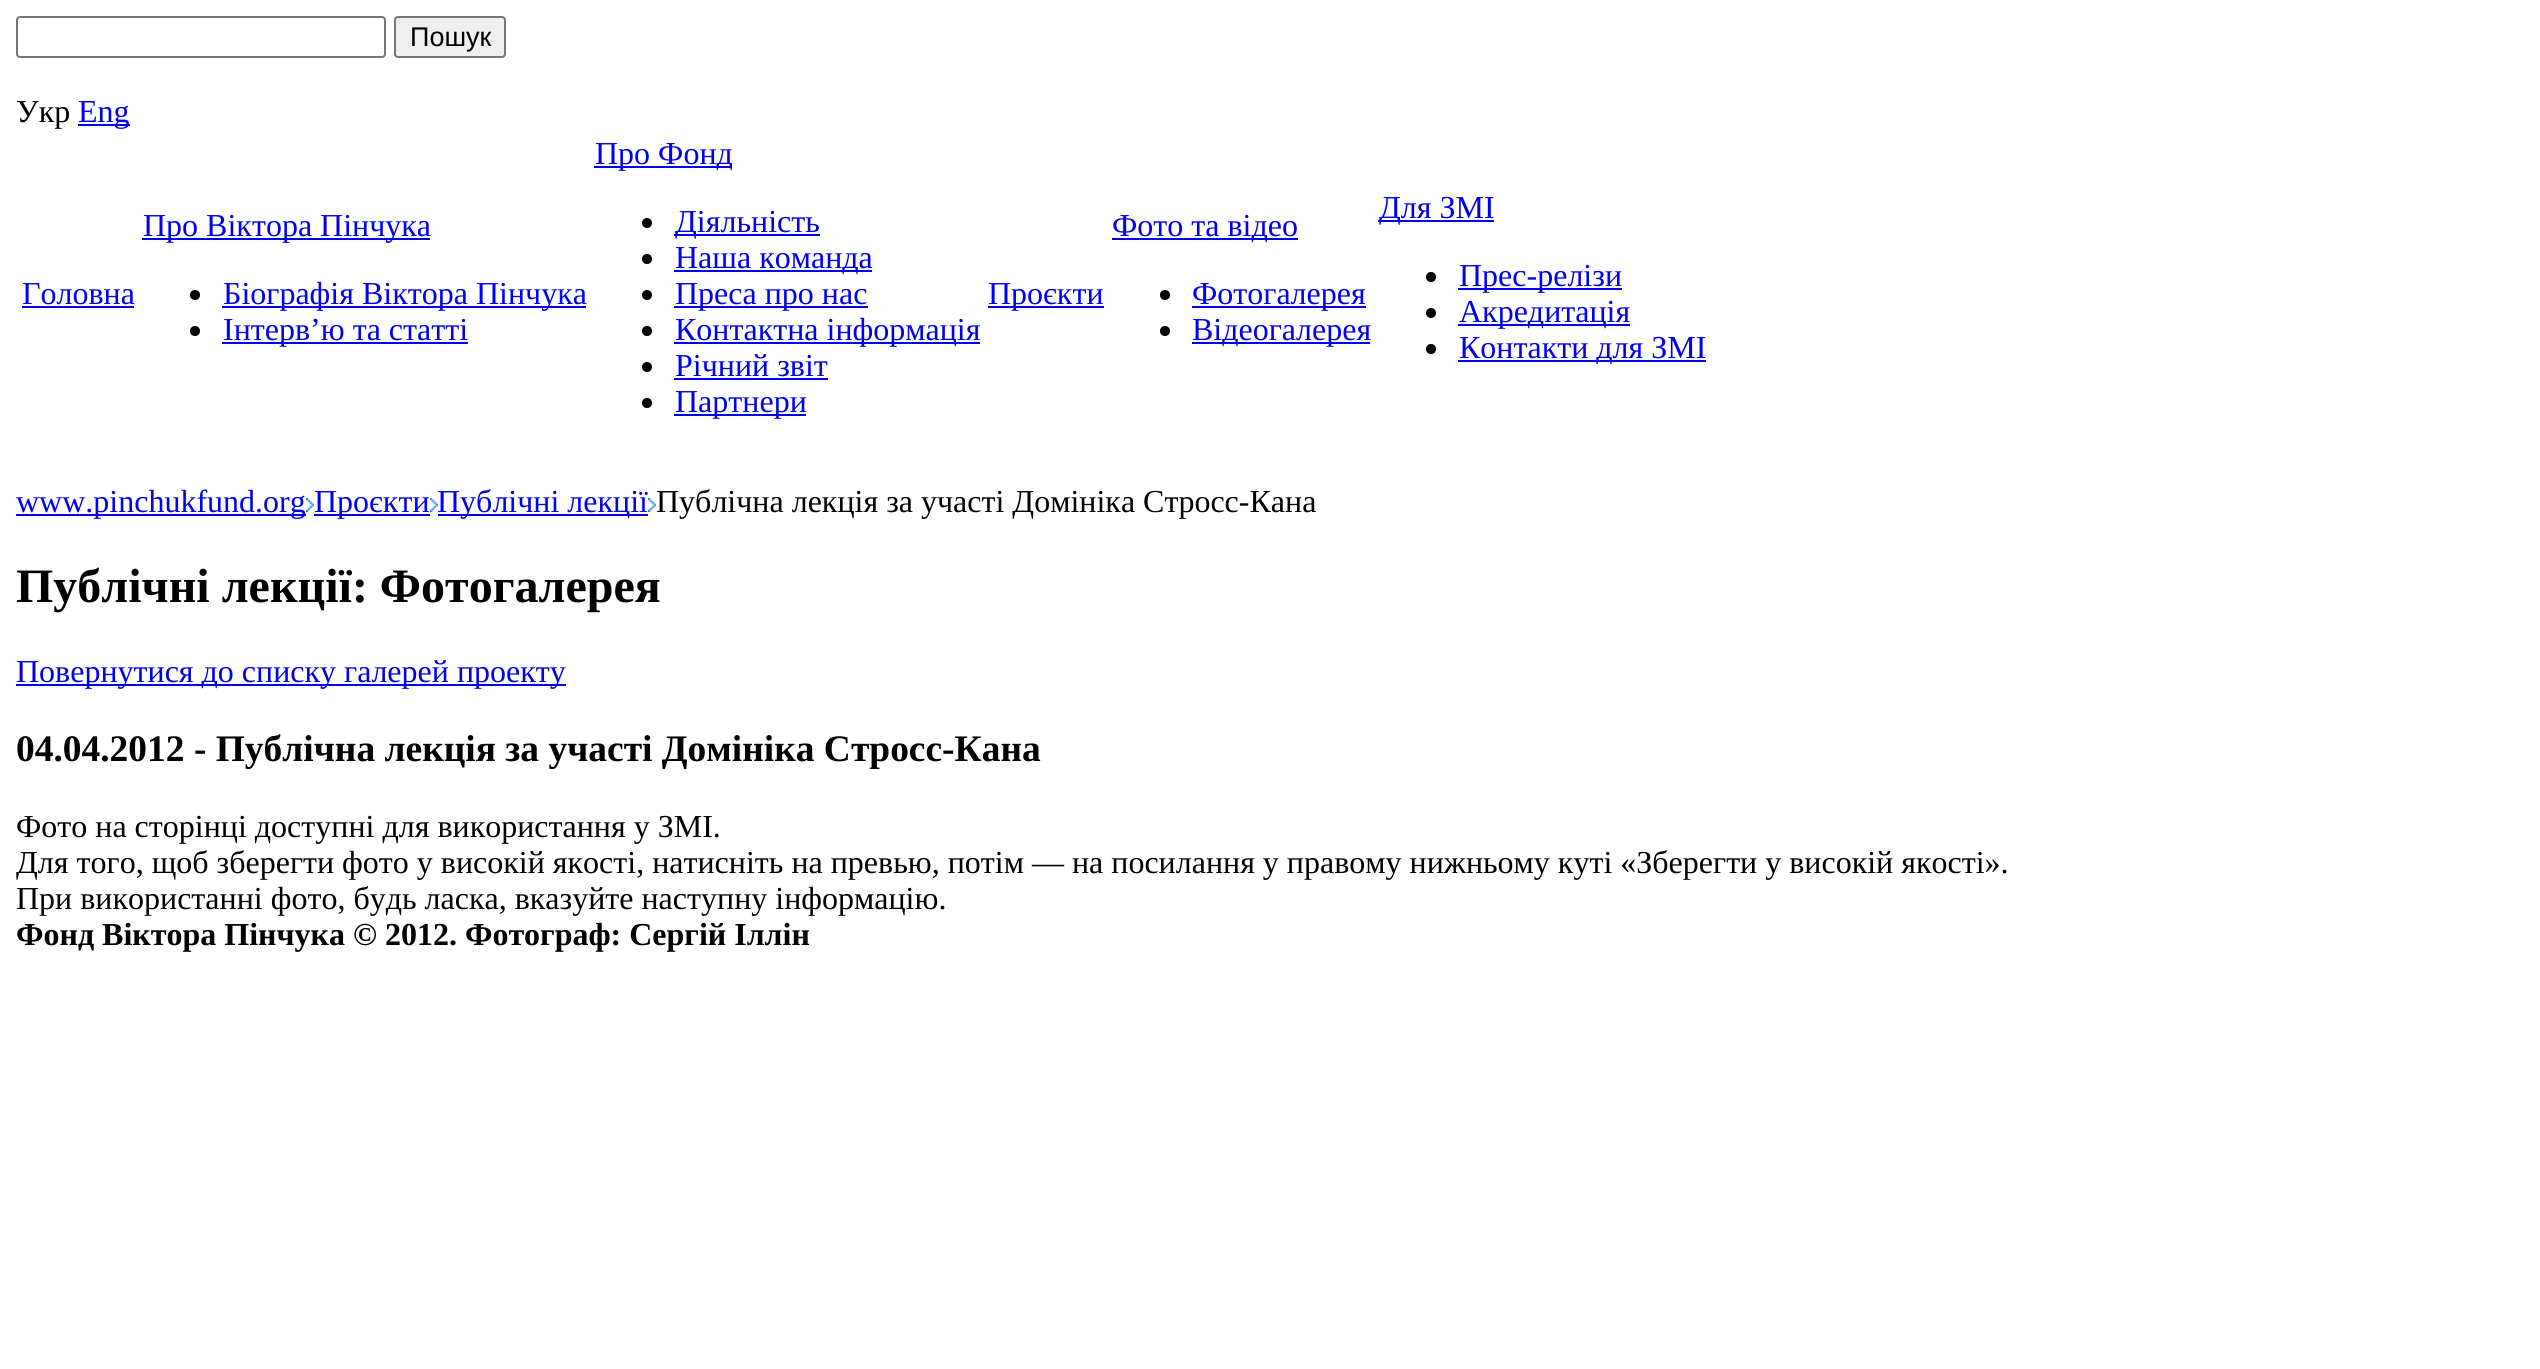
#include <cairo.h>
#include <math.h>
#include <stddef.h>


static void round_rect(cairo_t *cr, double x, double y, double w, double h, double r) {
    cairo_new_sub_path(cr);
    cairo_arc(cr, x + w - r, y + h - r, r, 0, M_PI / 2);
    cairo_arc(cr, x + r, y + h - r, r, M_PI / 2, M_PI);
    cairo_arc(cr, x + r, y + r, r, M_PI, 1.5 * M_PI);
    cairo_arc(cr, x + w - r, y + r, r, 1.5 * M_PI, 2 * M_PI);
    cairo_close_path(cr);
}

static void picture(cairo_t *cr, const char *path, double x, double y, double w, double h) {
    cairo_surface_t *image = cairo_image_surface_create_from_png(path);
    cairo_save(cr);
    cairo_set_source_surface(cr, image, x, y);
    cairo_rectangle(cr, x, y, w, h);
    cairo_fill(cr);
    cairo_restore(cr);
    cairo_surface_destroy(image);
}

int main(void) {
    cairo_surface_t *surface = cairo_image_surface_create(CAIRO_FORMAT_RGB24, 2540, 1369);
    cairo_t *cr = cairo_create(surface);
    cairo_font_options_t *options = cairo_font_options_create();
    cairo_font_options_set_hint_metrics(options, CAIRO_HINT_METRICS_OFF);
    cairo_font_options_set_hint_style(options, CAIRO_HINT_STYLE_NONE);
    cairo_set_font_options(cr, options);
    cairo_set_miter_limit(cr, 4);
    cairo_set_source_rgb(cr, 1, 1, 1);
    cairo_paint(cr);
    round_rect(cr, 17, 17, 368, 40, 3);
    cairo_set_source_rgb(cr, 0.463, 0.463, 0.463);
    cairo_stroke(cr);
    cairo_set_source_rgb(cr, 0.937, 0.937, 0.937);
    round_rect(cr, 395, 17, 110, 40, 3);
    cairo_fill_preserve(cr);
    cairo_set_source_rgb(cr, 0.463, 0.463, 0.463);
    cairo_stroke(cr);
    cairo_select_font_face(cr, "Liberation Sans", CAIRO_FONT_SLANT_NORMAL, CAIRO_FONT_WEIGHT_NORMAL);
    cairo_set_font_size(cr, 27);
    cairo_set_source_rgb(cr, 0, 0, 0);
    cairo_move_to(cr, 410, 46);
    cairo_show_text(cr, "Пошук");
    cairo_select_font_face(cr, "Liberation Serif", CAIRO_FONT_SLANT_NORMAL, CAIRO_FONT_WEIGHT_NORMAL);
    cairo_set_font_size(cr, 32);
    cairo_move_to(cr, 16, 122);
    cairo_show_text(cr, "Укр");
    cairo_set_source_rgb(cr, 0, 0, 0.933);
    cairo_rectangle(cr, 78, 124, 52, 2);
    cairo_fill(cr);
    cairo_move_to(cr, 78, 122);
    cairo_show_text(cr, "Eng");
    cairo_move_to(cr, 22, 304);
    cairo_show_text(cr, "Головна");
    cairo_rectangle(cr, 22, 306, 112, 2);
    cairo_fill(cr);
    cairo_rectangle(cr, 142, 238, 288, 2);
    cairo_fill(cr);
    cairo_move_to(cr, 143, 236);
    cairo_show_text(cr, "Про Віктора Пінчука");
    cairo_set_source_rgb(cr, 0, 0, 0);
    cairo_new_path(cr);
    cairo_arc(cr, 195, 295, 5, 0, 2 * M_PI);
    cairo_fill(cr);
    cairo_set_source_rgb(cr, 0, 0, 0.933);
    cairo_rectangle(cr, 222, 306, 364, 2);
    cairo_fill(cr);
    cairo_move_to(cr, 223, 304);
    cairo_show_text(cr, "Біографія Віктора Пінчука");
    cairo_set_source_rgb(cr, 0, 0, 0);
    cairo_new_path(cr);
    cairo_arc(cr, 195, 331, 5, 0, 2 * M_PI);
    cairo_fill(cr);
    cairo_set_source_rgb(cr, 0, 0, 0.933);
    cairo_rectangle(cr, 222, 342, 246, 2);
    cairo_fill(cr);
    cairo_move_to(cr, 223, 340);
    cairo_show_text(cr, "Інтерв’ю та статті");
    cairo_rectangle(cr, 594, 166, 138, 2);
    cairo_fill(cr);
    cairo_move_to(cr, 595, 164);
    cairo_show_text(cr, "Про Фонд");
    cairo_set_source_rgb(cr, 0, 0, 0);
    cairo_new_path(cr);
    cairo_arc(cr, 647, 223, 5, 0, 2 * M_PI);
    cairo_fill(cr);
    cairo_set_source_rgb(cr, 0, 0, 0.933);
    cairo_rectangle(cr, 674, 234, 146, 2);
    cairo_fill(cr);
    cairo_move_to(cr, 675, 232);
    cairo_show_text(cr, "Діяльність");
    cairo_set_source_rgb(cr, 0, 0, 0);
    cairo_new_path(cr);
    cairo_arc(cr, 647, 259, 5, 0, 2 * M_PI);
    cairo_fill(cr);
    cairo_set_source_rgb(cr, 0, 0, 0.933);
    cairo_rectangle(cr, 674, 270, 198, 2);
    cairo_fill(cr);
    cairo_move_to(cr, 675, 268);
    cairo_show_text(cr, "Наша команда");
    cairo_set_source_rgb(cr, 0, 0, 0);
    cairo_new_path(cr);
    cairo_arc(cr, 647, 295, 5, 0, 2 * M_PI);
    cairo_fill(cr);
    cairo_set_source_rgb(cr, 0, 0, 0.933);
    cairo_rectangle(cr, 674, 306, 194, 2);
    cairo_fill(cr);
    cairo_move_to(cr, 675, 304);
    cairo_show_text(cr, "Преса про нас");
    cairo_set_source_rgb(cr, 0, 0, 0);
    cairo_new_path(cr);
    cairo_arc(cr, 647, 331, 5, 0, 2 * M_PI);
    cairo_fill(cr);
    cairo_set_source_rgb(cr, 0, 0, 0.933);
    cairo_rectangle(cr, 674, 342, 306, 2);
    cairo_fill(cr);
    cairo_move_to(cr, 675, 340);
    cairo_show_text(cr, "Контактна інформація");
    cairo_set_source_rgb(cr, 0, 0, 0);
    cairo_new_path(cr);
    cairo_arc(cr, 647, 367, 5, 0, 2 * M_PI);
    cairo_fill(cr);
    cairo_set_source_rgb(cr, 0, 0, 0.933);
    cairo_move_to(cr, 675, 376);
    cairo_show_text(cr, "Річний звіт");
    cairo_rectangle(cr, 674, 378, 154, 2);
    cairo_fill(cr);
    cairo_set_source_rgb(cr, 0, 0, 0);
    cairo_arc(cr, 647, 403, 5, 0, 2 * M_PI);
    cairo_fill(cr);
    cairo_set_source_rgb(cr, 0, 0, 0.933);
    cairo_rectangle(cr, 674, 414, 132, 2);
    cairo_fill(cr);
    cairo_move_to(cr, 675, 412);
    cairo_show_text(cr, "Партнери");
    cairo_rectangle(cr, 988, 306, 116, 2);
    cairo_fill(cr);
    cairo_move_to(cr, 988, 304);
    cairo_show_text(cr, "Проєкти");
    cairo_rectangle(cr, 1112, 238, 186, 2);
    cairo_fill(cr);
    cairo_move_to(cr, 1112, 236);
    cairo_show_text(cr, "Фото та відео");
    cairo_set_source_rgb(cr, 0, 0, 0);
    cairo_new_path(cr);
    cairo_arc(cr, 1165, 295, 5, 0, 2 * M_PI);
    cairo_fill(cr);
    cairo_set_source_rgb(cr, 0, 0, 0.933);
    cairo_rectangle(cr, 1192, 306, 174, 2);
    cairo_fill(cr);
    cairo_move_to(cr, 1192, 304);
    cairo_show_text(cr, "Фотогалерея");
    cairo_set_source_rgb(cr, 0, 0, 0);
    cairo_new_path(cr);
    cairo_arc(cr, 1165, 331, 5, 0, 2 * M_PI);
    cairo_fill(cr);
    cairo_set_source_rgb(cr, 0, 0, 0.933);
    cairo_rectangle(cr, 1192, 342, 178, 2);
    cairo_fill(cr);
    cairo_move_to(cr, 1192, 340);
    cairo_show_text(cr, "Відеогалерея");
    cairo_rectangle(cr, 1378, 220, 116, 2);
    cairo_fill(cr);
    cairo_move_to(cr, 1379, 218);
    cairo_show_text(cr, "Для ЗМІ");
    cairo_set_source_rgb(cr, 0, 0, 0);
    cairo_new_path(cr);
    cairo_arc(cr, 1431, 277, 5, 0, 2 * M_PI);
    cairo_fill(cr);
    cairo_set_source_rgb(cr, 0, 0, 0.933);
    cairo_rectangle(cr, 1458, 288, 164, 2);
    cairo_fill(cr);
    cairo_move_to(cr, 1459, 286);
    cairo_show_text(cr, "Прес-релізи");
    cairo_set_source_rgb(cr, 0, 0, 0);
    cairo_new_path(cr);
    cairo_arc(cr, 1431, 313, 5, 0, 2 * M_PI);
    cairo_fill(cr);
    cairo_set_source_rgb(cr, 0, 0, 0.933);
    cairo_rectangle(cr, 1458, 324, 172, 2);
    cairo_fill(cr);
    cairo_move_to(cr, 1459, 322);
    cairo_show_text(cr, "Акредитація");
    cairo_set_source_rgb(cr, 0, 0, 0);
    cairo_new_path(cr);
    cairo_arc(cr, 1431, 349, 5, 0, 2 * M_PI);
    cairo_fill(cr);
    cairo_set_source_rgb(cr, 0, 0, 0.933);
    cairo_rectangle(cr, 1458, 360, 248, 2);
    cairo_fill(cr);
    cairo_move_to(cr, 1459, 358);
    cairo_show_text(cr, "Контакти для ЗМІ");
    cairo_rectangle(cr, 16, 514, 290, 2);
    cairo_fill(cr);
    cairo_move_to(cr, 16, 512);
    cairo_show_text(cr, "www.pinchukfund.org");
    picture(cr, "img1.png", 306, 498, 8, 14);
    cairo_rectangle(cr, 314, 514, 116, 2);
    cairo_fill(cr);
    cairo_move_to(cr, 314, 512);
    cairo_show_text(cr, "Проєкти");
    picture(cr, "img1.png", 430, 498, 8, 14);
    cairo_rectangle(cr, 438, 514, 210, 2);
    cairo_fill(cr);
    cairo_move_to(cr, 437, 512);
    cairo_show_text(cr, "Публічні лекції");
    picture(cr, "img1.png", 648, 498, 8, 14);
    cairo_set_source_rgb(cr, 0, 0, 0);
    cairo_move_to(cr, 656, 512);
    cairo_show_text(cr, "Публічна лекція за участі Домініка Стросс-Кана");
    cairo_select_font_face(cr, "Liberation Serif", CAIRO_FONT_SLANT_NORMAL, CAIRO_FONT_WEIGHT_BOLD);
    cairo_set_font_size(cr, 48);
    cairo_move_to(cr, 16, 602);
    cairo_show_text(cr, "Публічні лекції: Фотогалерея");
    cairo_set_source_rgb(cr, 0, 0, 0.933);
    cairo_rectangle(cr, 16, 684, 550, 2);
    cairo_fill(cr);
    cairo_select_font_face(cr, "Liberation Serif", CAIRO_FONT_SLANT_NORMAL, CAIRO_FONT_WEIGHT_NORMAL);
    cairo_set_font_size(cr, 32);
    cairo_move_to(cr, 16, 682);
    cairo_show_text(cr, "Повернутися до списку галерей проекту");
    cairo_select_font_face(cr, "Liberation Serif", CAIRO_FONT_SLANT_NORMAL, CAIRO_FONT_WEIGHT_BOLD);
    cairo_set_font_size(cr, 37.45);
    cairo_set_source_rgb(cr, 0, 0, 0);
    cairo_move_to(cr, 16, 761);
    cairo_show_text(cr, "04.04.2012 - Публічна лекція за участі Домініка Стросс-Кана");
    cairo_select_font_face(cr, "Liberation Serif", CAIRO_FONT_SLANT_NORMAL, CAIRO_FONT_WEIGHT_NORMAL);
    cairo_set_font_size(cr, 32);
    cairo_move_to(cr, 16, 837);
    cairo_show_text(cr, "Фото на сторінці доступні для використання у ЗМІ.");
    cairo_move_to(cr, 16, 873);
    cairo_show_text(cr, "Для того, щоб зберегти фото у високій якості, натисніть на превью, потім — на посилання у правому нижньому куті «Зберегти у високій якості».");
    cairo_move_to(cr, 16, 909);
    cairo_show_text(cr, "При використанні фото, будь ласка, вказуйте наступну інформацію.");
    cairo_select_font_face(cr, "Liberation Serif", CAIRO_FONT_SLANT_NORMAL, CAIRO_FONT_WEIGHT_BOLD);
    cairo_move_to(cr, 16, 945);
    cairo_show_text(cr, "Фонд Віктора Пінчука © 2012. Фотограф: Сергій Іллін");
    cairo_surface_write_to_png(surface, "page.png");
    cairo_font_options_destroy(options);
    cairo_destroy(cr);
    cairo_surface_destroy(surface);
    return 0;
}
